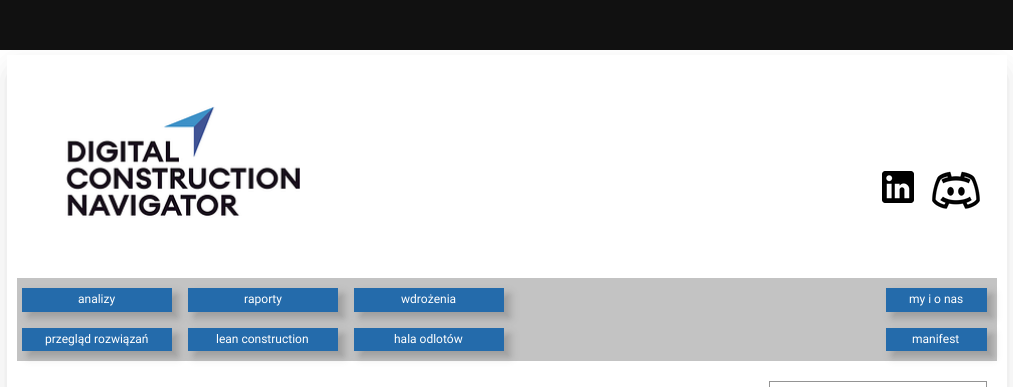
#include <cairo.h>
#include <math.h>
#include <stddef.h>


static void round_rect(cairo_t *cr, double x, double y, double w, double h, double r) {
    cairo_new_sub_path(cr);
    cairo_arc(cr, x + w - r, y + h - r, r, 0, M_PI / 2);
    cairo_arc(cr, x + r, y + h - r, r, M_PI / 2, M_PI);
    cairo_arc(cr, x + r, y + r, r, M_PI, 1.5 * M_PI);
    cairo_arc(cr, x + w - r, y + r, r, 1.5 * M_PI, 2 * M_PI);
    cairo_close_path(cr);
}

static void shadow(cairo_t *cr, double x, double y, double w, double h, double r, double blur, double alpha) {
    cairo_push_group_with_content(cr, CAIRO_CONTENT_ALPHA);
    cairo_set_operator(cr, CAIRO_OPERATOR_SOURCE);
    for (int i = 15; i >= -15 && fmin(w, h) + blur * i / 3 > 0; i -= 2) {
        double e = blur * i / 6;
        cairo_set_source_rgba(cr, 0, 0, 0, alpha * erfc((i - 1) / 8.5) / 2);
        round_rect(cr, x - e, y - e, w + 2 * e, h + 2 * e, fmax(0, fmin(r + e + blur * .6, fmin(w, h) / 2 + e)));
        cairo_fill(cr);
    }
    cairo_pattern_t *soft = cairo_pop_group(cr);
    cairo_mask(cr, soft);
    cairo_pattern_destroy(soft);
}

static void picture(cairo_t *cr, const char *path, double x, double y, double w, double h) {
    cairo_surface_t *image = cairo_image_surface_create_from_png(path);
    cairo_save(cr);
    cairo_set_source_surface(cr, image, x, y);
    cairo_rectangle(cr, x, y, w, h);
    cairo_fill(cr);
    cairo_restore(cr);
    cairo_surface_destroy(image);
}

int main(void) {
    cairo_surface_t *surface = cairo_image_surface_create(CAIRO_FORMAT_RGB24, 1013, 387);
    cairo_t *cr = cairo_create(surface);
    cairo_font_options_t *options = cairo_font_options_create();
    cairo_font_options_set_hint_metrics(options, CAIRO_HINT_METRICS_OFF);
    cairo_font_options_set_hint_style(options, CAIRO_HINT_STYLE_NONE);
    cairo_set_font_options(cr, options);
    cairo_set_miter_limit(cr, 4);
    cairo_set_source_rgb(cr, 1, 1, 1);
    cairo_paint(cr);
    cairo_save(cr);
    cairo_set_fill_rule(cr, CAIRO_FILL_RULE_EVEN_ODD);
    cairo_new_path(cr);
    cairo_move_to(cr, 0, 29);
    cairo_line_to(cr, 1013, 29);
    cairo_line_to(cr, 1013, 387);
    cairo_line_to(cr, 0, 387);
    cairo_close_path(cr);
    cairo_move_to(cr, 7, 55);
    cairo_line_to(cr, 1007, 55);
    cairo_line_to(cr, 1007, 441);
    cairo_line_to(cr, 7, 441);
    cairo_close_path(cr);
    cairo_clip(cr);
    cairo_set_source_rgb(cr, 0.765, 0.765, 0.765);
    shadow(cr, 17, 75, 980, 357, 0, 15, 1);
    cairo_restore(cr);
    cairo_set_source_rgb(cr, 0.067, 0.067, 0.067);
    cairo_rectangle(cr, 0, 0, 1013, 50);
    cairo_fill(cr);
    picture(cr, "img1.png", 65, 106, 235, 112);
    picture(cr, "img2.png", 882, 171, 32, 32);
    picture(cr, "img3.png", 932, 171, 48, 38);
    cairo_set_source_rgb(cr, 0.765, 0.765, 0.765);
    cairo_rectangle(cr, 17, 278, 980, 83);
    cairo_fill(cr);
    cairo_set_source_rgb(cr, 0, 0, 0);
    shadow(cr, 28, 294, 150, 24, 0, 4.5, 0.2);
    cairo_set_source_rgb(cr, 0.141, 0.42, 0.671);
    cairo_rectangle(cr, 22, 288, 150, 24);
    cairo_fill(cr);
    cairo_select_font_face(cr, "Roboto", CAIRO_FONT_SLANT_NORMAL, CAIRO_FONT_WEIGHT_NORMAL);
    cairo_set_font_size(cr, 12);
    cairo_set_source_rgb(cr, 1, 1, 1);
    cairo_move_to(cr, 78, 303);
    cairo_show_text(cr, "analizy");
    cairo_set_source_rgb(cr, 0, 0, 0);
    shadow(cr, 28, 334, 150, 23, 0, 4.5, 0.2);
    cairo_set_source_rgb(cr, 0.141, 0.42, 0.671);
    cairo_rectangle(cr, 22, 328, 150, 23);
    cairo_fill(cr);
    cairo_set_source_rgb(cr, 1, 1, 1);
    cairo_move_to(cr, 45, 343);
    cairo_show_text(cr, "przegląd rozwiązań");
    cairo_set_source_rgb(cr, 0, 0, 0);
    shadow(cr, 194, 294, 150, 24, 0, 4.5, 0.2);
    cairo_set_source_rgb(cr, 0.141, 0.42, 0.671);
    cairo_rectangle(cr, 188, 288, 150, 24);
    cairo_fill(cr);
    cairo_set_source_rgb(cr, 1, 1, 1);
    cairo_move_to(cr, 244, 303);
    cairo_show_text(cr, "raporty");
    cairo_set_source_rgb(cr, 0, 0, 0);
    shadow(cr, 194, 334, 150, 23, 0, 4.5, 0.2);
    cairo_set_source_rgb(cr, 0.141, 0.42, 0.671);
    cairo_rectangle(cr, 188, 328, 150, 23);
    cairo_fill(cr);
    cairo_set_source_rgb(cr, 1, 1, 1);
    cairo_move_to(cr, 216, 343);
    cairo_show_text(cr, "lean construction");
    cairo_set_source_rgb(cr, 0, 0, 0);
    shadow(cr, 360, 294, 150, 24, 0, 4.5, 0.2);
    cairo_set_source_rgb(cr, 0.141, 0.42, 0.671);
    cairo_rectangle(cr, 354, 288, 150, 24);
    cairo_fill(cr);
    cairo_set_source_rgb(cr, 1, 1, 1);
    cairo_move_to(cr, 401, 303);
    cairo_show_text(cr, "wdrożenia");
    cairo_set_source_rgb(cr, 0, 0, 0);
    shadow(cr, 360, 334, 150, 23, 0, 4.5, 0.2);
    cairo_set_source_rgb(cr, 0.141, 0.42, 0.671);
    cairo_rectangle(cr, 354, 328, 150, 23);
    cairo_fill(cr);
    cairo_set_source_rgb(cr, 1, 1, 1);
    cairo_move_to(cr, 394, 343);
    cairo_show_text(cr, "hala odlotów");
    cairo_set_source_rgb(cr, 0, 0, 0);
    shadow(cr, 892, 294, 101, 24, 0, 4.5, 0.2);
    cairo_set_source_rgb(cr, 0.141, 0.42, 0.671);
    cairo_rectangle(cr, 886, 288, 101, 24);
    cairo_fill(cr);
    cairo_set_source_rgb(cr, 1, 1, 1);
    cairo_move_to(cr, 909, 303);
    cairo_show_text(cr, "my i o nas");
    cairo_set_source_rgb(cr, 0, 0, 0);
    shadow(cr, 892, 334, 101, 23, 0, 4.5, 0.2);
    cairo_set_source_rgb(cr, 0.141, 0.42, 0.671);
    cairo_rectangle(cr, 886, 328, 101, 23);
    cairo_fill(cr);
    cairo_set_source_rgb(cr, 1, 1, 1);
    cairo_move_to(cr, 912, 343);
    cairo_show_text(cr, "manifest");
    cairo_rectangle(cr, 769.5, 381.5, 217, 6);
    cairo_set_source_rgb(cr, 0.58, 0.58, 0.58);
    cairo_set_line_width(cr, 1);
    cairo_stroke(cr);
    cairo_surface_write_to_png(surface, "page.png");
    cairo_font_options_destroy(options);
    cairo_destroy(cr);
    cairo_surface_destroy(surface);
    return 0;
}
